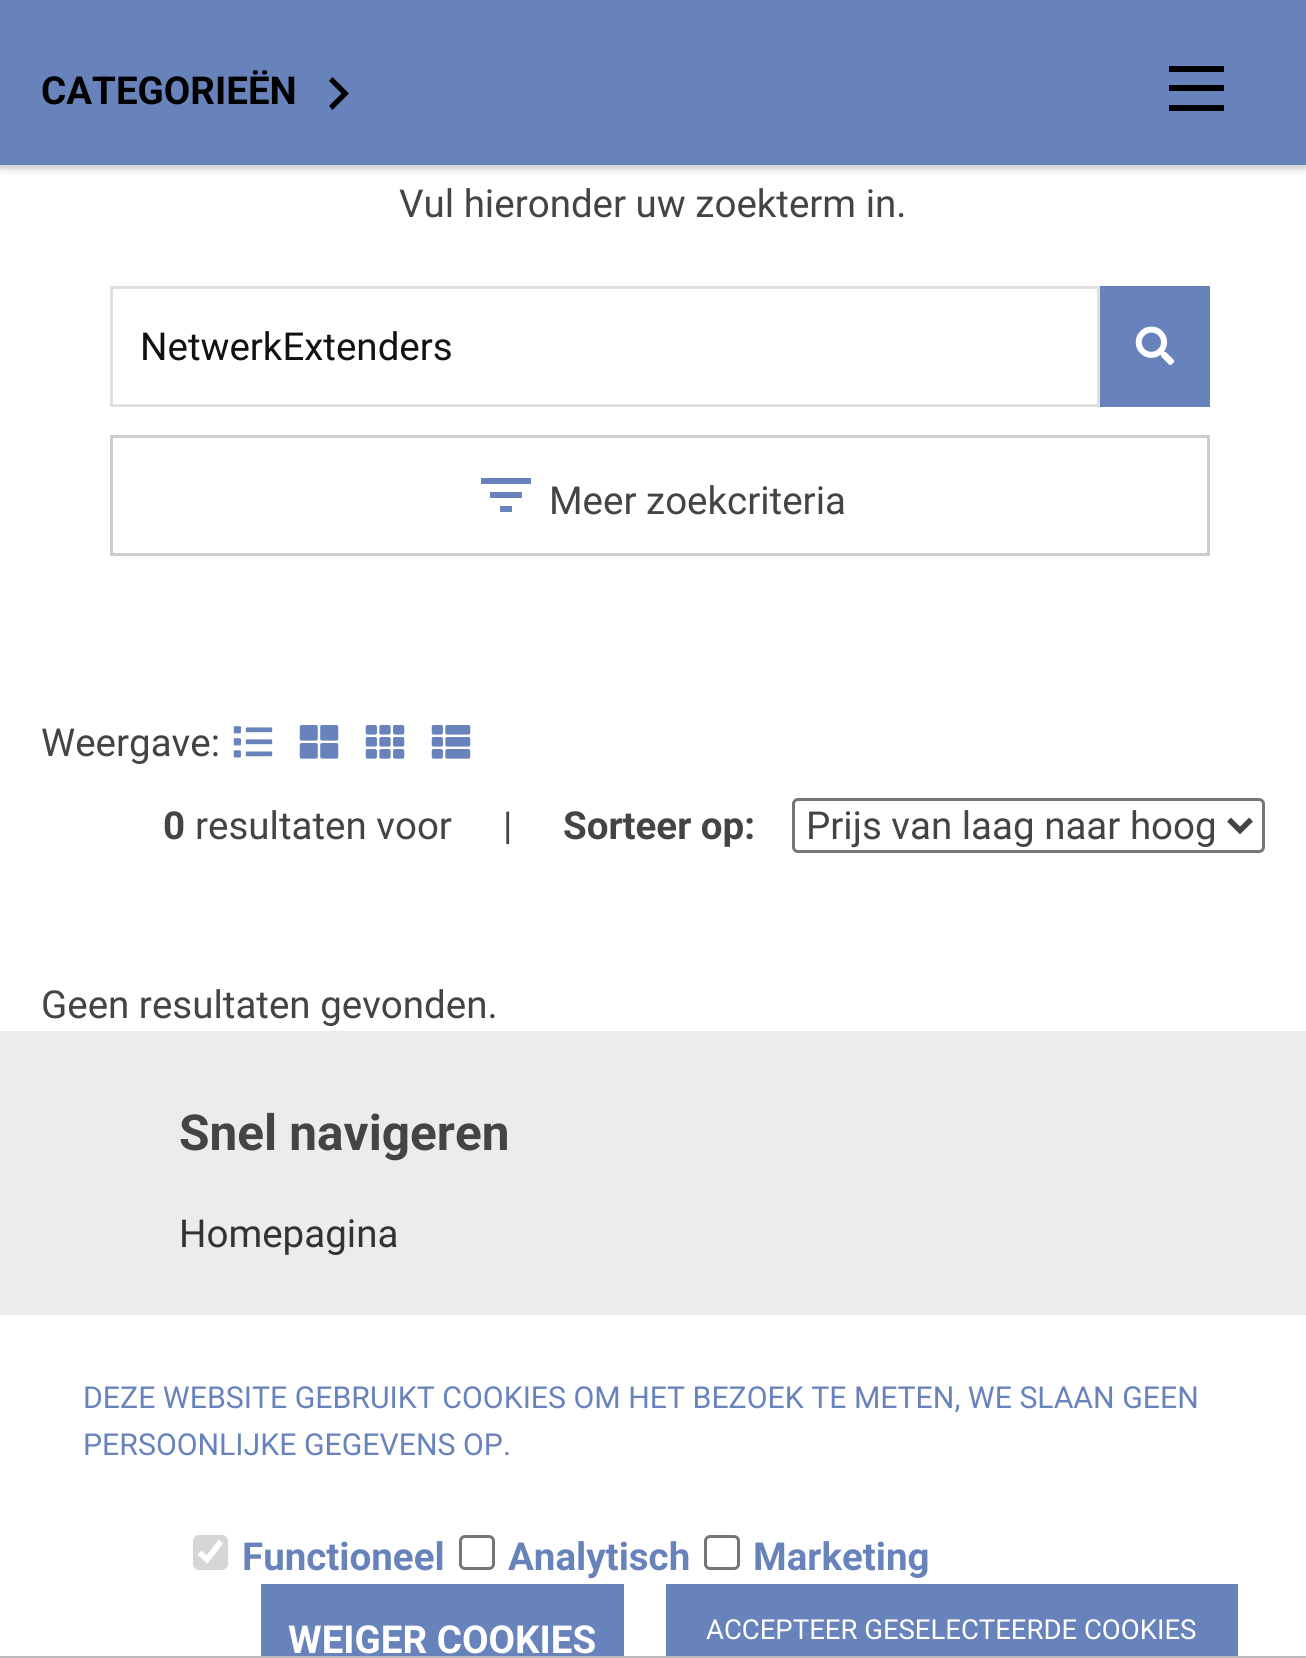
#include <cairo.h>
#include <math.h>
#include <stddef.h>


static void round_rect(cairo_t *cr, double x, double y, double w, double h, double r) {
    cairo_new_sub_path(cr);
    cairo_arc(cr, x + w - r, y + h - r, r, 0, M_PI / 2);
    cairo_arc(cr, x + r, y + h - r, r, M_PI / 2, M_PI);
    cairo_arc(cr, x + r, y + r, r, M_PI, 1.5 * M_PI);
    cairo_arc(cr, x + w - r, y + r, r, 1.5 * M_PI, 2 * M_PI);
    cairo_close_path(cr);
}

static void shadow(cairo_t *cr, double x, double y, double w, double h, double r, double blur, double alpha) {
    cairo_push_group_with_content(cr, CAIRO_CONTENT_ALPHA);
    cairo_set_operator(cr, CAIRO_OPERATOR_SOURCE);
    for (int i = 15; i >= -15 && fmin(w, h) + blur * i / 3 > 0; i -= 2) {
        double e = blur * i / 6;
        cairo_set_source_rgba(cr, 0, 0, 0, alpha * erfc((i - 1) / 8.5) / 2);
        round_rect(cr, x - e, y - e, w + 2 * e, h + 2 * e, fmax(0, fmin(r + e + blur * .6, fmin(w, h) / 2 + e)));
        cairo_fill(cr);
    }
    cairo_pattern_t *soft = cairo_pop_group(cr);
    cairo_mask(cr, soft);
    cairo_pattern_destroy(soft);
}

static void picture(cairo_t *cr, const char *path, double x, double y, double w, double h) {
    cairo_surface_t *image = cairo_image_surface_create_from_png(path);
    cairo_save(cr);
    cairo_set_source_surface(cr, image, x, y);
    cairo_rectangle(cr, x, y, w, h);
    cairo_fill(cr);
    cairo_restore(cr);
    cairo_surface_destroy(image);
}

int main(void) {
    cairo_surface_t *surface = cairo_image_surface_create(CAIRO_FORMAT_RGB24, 1306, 1658);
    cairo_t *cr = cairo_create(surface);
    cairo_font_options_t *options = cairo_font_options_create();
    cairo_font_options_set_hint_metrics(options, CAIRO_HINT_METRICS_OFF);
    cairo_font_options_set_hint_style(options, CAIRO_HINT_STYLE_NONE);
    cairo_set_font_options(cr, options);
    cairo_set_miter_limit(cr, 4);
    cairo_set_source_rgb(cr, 1, 1, 1);
    cairo_paint(cr);
    cairo_set_source_rgb(cr, 0.502, 0.502, 0.502);
    shadow(cr, 0, 3, 1306, 165, 0, 4, 0.5);
    cairo_set_source_rgb(cr, 0.408, 0.514, 0.737);
    cairo_rectangle(cr, 0, 0, 1306, 165);
    cairo_fill(cr);
    cairo_select_font_face(cr, "Roboto", CAIRO_FONT_SLANT_NORMAL, CAIRO_FONT_WEIGHT_BOLD);
    cairo_set_font_size(cr, 38.5);
    cairo_set_source_rgb(cr, 0, 0, 0);
    cairo_move_to(cr, 41, 104);
    cairo_show_text(cr, "CATEGORIEËN");
    cairo_new_path(cr);
    cairo_move_to(cr, 329, 106);
    cairo_line_to(cr, 341.5, 93.5);
    cairo_line_to(cr, 329, 81);
    cairo_line_to(cr, 332.5, 77);
    cairo_line_to(cr, 349, 93.5);
    cairo_line_to(cr, 332.5, 110);
    cairo_close_path(cr);
    cairo_fill(cr);
    cairo_rectangle(cr, 1169, 66, 55, 6);
    cairo_fill(cr);
    cairo_rectangle(cr, 1169, 85, 55, 6);
    cairo_fill(cr);
    cairo_rectangle(cr, 1169, 105, 55, 6);
    cairo_fill(cr);
    cairo_select_font_face(cr, "Roboto", CAIRO_FONT_SLANT_NORMAL, CAIRO_FONT_WEIGHT_NORMAL);
    cairo_set_source_rgb(cr, 0.267, 0.267, 0.267);
    cairo_move_to(cr, 399, 217);
    cairo_show_text(cr, "Vul hieronder uw zoekterm in.");
    cairo_rectangle(cr, 111.5, 287.5, 987, 118);
    cairo_set_source_rgb(cr, 0.875, 0.875, 0.875);
    cairo_set_line_width(cr, 3);
    cairo_stroke(cr);
    cairo_set_source_rgb(cr, 0.067, 0.067, 0.067);
    cairo_move_to(cr, 140, 360);
    cairo_show_text(cr, "NetwerkExtenders");
    cairo_set_source_rgb(cr, 0.408, 0.514, 0.737);
    cairo_rectangle(cr, 1100, 286, 110, 121);
    cairo_fill(cr);
    picture(cr, "img1.png", 1135, 326, 40, 39);
    cairo_rectangle(cr, 111.5, 436.5, 1097, 118);
    cairo_set_source_rgb(cr, 0.8, 0.8, 0.8);
    cairo_stroke(cr);
    cairo_set_source_rgb(cr, 0.408, 0.514, 0.737);
    cairo_new_path(cr);
    cairo_move_to(cr, 490, 498);
    cairo_line_to(cr, 490, 492);
    cairo_line_to(cr, 522, 492);
    cairo_line_to(cr, 522, 498);
    cairo_close_path(cr);
    cairo_move_to(cr, 481, 478);
    cairo_line_to(cr, 531, 478);
    cairo_line_to(cr, 531, 484);
    cairo_line_to(cr, 481, 484);
    cairo_close_path(cr);
    cairo_move_to(cr, 500, 512);
    cairo_line_to(cr, 500, 506);
    cairo_line_to(cr, 512, 506);
    cairo_line_to(cr, 512, 512);
    cairo_close_path(cr);
    cairo_fill(cr);
    cairo_set_source_rgb(cr, 0.267, 0.267, 0.267);
    cairo_move_to(cr, 549, 514);
    cairo_show_text(cr, "Meer zoekcriteria");
    cairo_move_to(cr, 41, 756);
    cairo_show_text(cr, "Weergave:");
    picture(cr, "img2.png", 233, 726, 40, 32);
    picture(cr, "img3.png", 299, 725, 40, 34);
    picture(cr, "img4.png", 365, 725, 40, 34);
    picture(cr, "img5.png", 431, 725, 40, 34);
    cairo_select_font_face(cr, "Roboto", CAIRO_FONT_SLANT_NORMAL, CAIRO_FONT_WEIGHT_BOLD);
    cairo_move_to(cr, 163, 839);
    cairo_show_text(cr, "0");
    cairo_select_font_face(cr, "Roboto", CAIRO_FONT_SLANT_NORMAL, CAIRO_FONT_WEIGHT_NORMAL);
    cairo_move_to(cr, 195, 839);
    cairo_show_text(cr, "resultaten voor");
    cairo_move_to(cr, 503, 839);
    cairo_show_text(cr, "|");
    cairo_select_font_face(cr, "Roboto", CAIRO_FONT_SLANT_NORMAL, CAIRO_FONT_WEIGHT_BOLD);
    cairo_move_to(cr, 563, 839);
    cairo_show_text(cr, "Sorteer op:");
    round_rect(cr, 793.5, 799.5, 470, 52, 4.5);
    cairo_set_source_rgb(cr, 0.463, 0.463, 0.463);
    cairo_stroke(cr);
    cairo_new_path(cr);
    cairo_move_to(cr, 1229, 819.5);
    cairo_line_to(cr, 1240, 830.5);
    cairo_line_to(cr, 1251, 819.5);
    cairo_set_source_rgb(cr, 0.267, 0.267, 0.267);
    cairo_set_line_width(cr, 5.5);
    cairo_stroke(cr);
    cairo_select_font_face(cr, "Roboto", CAIRO_FONT_SLANT_NORMAL, CAIRO_FONT_WEIGHT_NORMAL);
    cairo_move_to(cr, 806, 839);
    cairo_show_text(cr, "Prijs van laag naar hoog");
    cairo_move_to(cr, 41, 1018);
    cairo_show_text(cr, "Geen resultaten gevonden.");
    cairo_set_source_rgb(cr, 0.922, 0.922, 0.922);
    cairo_rectangle(cr, 0, 1031, 1306, 284);
    cairo_fill(cr);
    cairo_select_font_face(cr, "Roboto", CAIRO_FONT_SLANT_NORMAL, CAIRO_FONT_WEIGHT_BOLD);
    cairo_set_font_size(cr, 49.5);
    cairo_set_source_rgb(cr, 0.267, 0.267, 0.267);
    cairo_move_to(cr, 179, 1150);
    cairo_show_text(cr, "Snel navigeren");
    cairo_select_font_face(cr, "Roboto", CAIRO_FONT_SLANT_NORMAL, CAIRO_FONT_WEIGHT_NORMAL);
    cairo_set_font_size(cr, 38.5);
    cairo_set_source_rgb(cr, 0.2, 0.2, 0.2);
    cairo_move_to(cr, 179, 1247);
    cairo_show_text(cr, "Homepagina");
    cairo_set_source_rgb(cr, 0.733, 0.733, 0.733);
    cairo_rectangle(cr, 0, 1656, 1306, 2);
    cairo_fill(cr);
    cairo_set_font_size(cr, 30.25);
    cairo_set_source_rgb(cr, 0.408, 0.514, 0.737);
    cairo_move_to(cr, 83, 1408);
    cairo_show_text(cr, "DEZE WEBSITE GEBRUIKT COOKIES OM HET BEZOEK TE METEN, WE SLAAN GEEN");
    cairo_move_to(cr, 83, 1455);
    cairo_show_text(cr, "PERSOONLIJKE GEGEVENS OP.");
    cairo_set_source_rgb(cr, 0.839, 0.839, 0.839);
    round_rect(cr, 193, 1535, 35, 35, 6);
    cairo_fill(cr);
    cairo_new_path(cr);
    cairo_move_to(cr, 199.5, 1552.5);
    cairo_line_to(cr, 207, 1559.5);
    cairo_line_to(cr, 221, 1541.5);
    cairo_set_source_rgb(cr, 1, 1, 1);
    cairo_set_line_width(cr, 5.7);
    cairo_stroke(cr);
    cairo_select_font_face(cr, "Roboto", CAIRO_FONT_SLANT_NORMAL, CAIRO_FONT_WEIGHT_BOLD);
    cairo_set_font_size(cr, 38.5);
    cairo_set_source_rgb(cr, 0.408, 0.514, 0.737);
    cairo_move_to(cr, 242, 1570);
    cairo_show_text(cr, "Functioneel");
    round_rect(cr, 460.5, 1536.5, 33, 32, 4.5);
    cairo_set_source_rgb(cr, 0.463, 0.463, 0.463);
    cairo_set_line_width(cr, 3);
    cairo_stroke(cr);
    cairo_set_source_rgb(cr, 0.408, 0.514, 0.737);
    cairo_move_to(cr, 508, 1570);
    cairo_show_text(cr, "Analytisch");
    round_rect(cr, 705.5, 1536.5, 33, 32, 4.5);
    cairo_set_source_rgb(cr, 0.463, 0.463, 0.463);
    cairo_stroke(cr);
    cairo_set_source_rgb(cr, 0.408, 0.514, 0.737);
    cairo_move_to(cr, 753, 1570);
    cairo_show_text(cr, "Marketing");
    cairo_rectangle(cr, 261, 1584, 363, 72);
    cairo_fill(cr);
    cairo_set_source_rgb(cr, 1, 1, 1);
    cairo_move_to(cr, 288, 1653);
    cairo_show_text(cr, "WEIGER COOKIES");
    cairo_set_source_rgb(cr, 0.408, 0.514, 0.737);
    cairo_rectangle(cr, 666, 1584, 572, 72);
    cairo_fill(cr);
    cairo_select_font_face(cr, "Roboto", CAIRO_FONT_SLANT_NORMAL, CAIRO_FONT_WEIGHT_NORMAL);
    cairo_set_font_size(cr, 27.5);
    cairo_set_source_rgb(cr, 1, 1, 1);
    cairo_move_to(cr, 706, 1639);
    cairo_show_text(cr, "ACCEPTEER GESELECTEERDE COOKIES");
    cairo_surface_write_to_png(surface, "page.png");
    cairo_font_options_destroy(options);
    cairo_destroy(cr);
    cairo_surface_destroy(surface);
    return 0;
}
